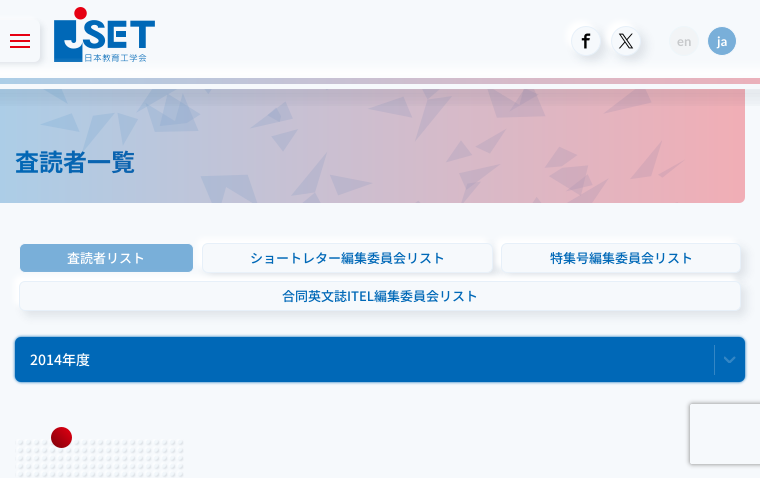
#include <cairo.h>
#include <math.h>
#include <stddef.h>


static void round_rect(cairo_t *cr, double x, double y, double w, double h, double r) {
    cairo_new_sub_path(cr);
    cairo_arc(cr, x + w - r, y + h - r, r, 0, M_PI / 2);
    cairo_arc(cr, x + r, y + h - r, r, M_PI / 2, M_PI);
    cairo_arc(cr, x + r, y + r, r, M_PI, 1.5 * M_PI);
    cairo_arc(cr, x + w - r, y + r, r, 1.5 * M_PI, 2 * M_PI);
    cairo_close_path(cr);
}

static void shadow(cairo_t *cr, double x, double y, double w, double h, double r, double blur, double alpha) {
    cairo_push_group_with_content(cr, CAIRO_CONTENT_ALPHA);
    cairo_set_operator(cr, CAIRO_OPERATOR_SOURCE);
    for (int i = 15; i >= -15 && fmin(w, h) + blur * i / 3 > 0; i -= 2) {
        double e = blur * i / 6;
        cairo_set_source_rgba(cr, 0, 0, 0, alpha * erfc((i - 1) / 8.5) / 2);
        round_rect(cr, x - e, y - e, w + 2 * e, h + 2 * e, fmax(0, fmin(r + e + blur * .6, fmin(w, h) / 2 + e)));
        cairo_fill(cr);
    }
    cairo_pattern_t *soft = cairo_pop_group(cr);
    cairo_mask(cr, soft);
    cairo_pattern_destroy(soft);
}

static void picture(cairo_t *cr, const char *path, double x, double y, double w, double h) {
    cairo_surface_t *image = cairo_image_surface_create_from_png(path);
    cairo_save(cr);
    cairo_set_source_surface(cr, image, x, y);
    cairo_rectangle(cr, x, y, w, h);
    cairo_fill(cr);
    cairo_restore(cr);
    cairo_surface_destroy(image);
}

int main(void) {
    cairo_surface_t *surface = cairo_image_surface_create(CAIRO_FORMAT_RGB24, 760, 478);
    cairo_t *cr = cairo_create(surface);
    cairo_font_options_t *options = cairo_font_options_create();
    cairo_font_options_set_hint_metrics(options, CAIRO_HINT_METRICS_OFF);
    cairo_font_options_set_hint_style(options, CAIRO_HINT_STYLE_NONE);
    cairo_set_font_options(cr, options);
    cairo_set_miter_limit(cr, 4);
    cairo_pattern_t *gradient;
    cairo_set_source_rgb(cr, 0.961, 0.976, 0.988);
    cairo_paint(cr);
    cairo_set_source_rgb(cr, 0, 0.118, 0.196);
    shadow(cr, -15, 23, 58, 42, 6, 3, 0.1);
    cairo_set_source_rgb(cr, 1, 1, 1);
    shadow(cr, -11, 17, 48, 42, 6, 1.5, 0.5);
    picture(cr, "img1.png", 54, 7, 101, 55);
    picture(cr, "img4.png", 43, 89, 635, 114);
    picture(cr, "img5.png", 117, 89, 568, 114);
    picture(cr, "img6.png", 40, 89, 622, 114);
    cairo_select_font_face(cr, "Noto Sans JP", CAIRO_FONT_SLANT_NORMAL, CAIRO_FONT_WEIGHT_BOLD);
    cairo_set_font_size(cr, 24);
    cairo_set_source_rgb(cr, 0, 0.408, 0.718);
    cairo_move_to(cr, 15, 171);
    cairo_show_text(cr, "査読者一覧");
    gradient = cairo_pattern_create_linear(0, 146, 745, 146);
    cairo_pattern_add_color_stop_rgba(gradient, 0, 0, 0.408, 0.718, 0.3);
    cairo_pattern_add_color_stop_rgba(gradient, 1, 0.902, 0, 0.071, 0.3);
    cairo_set_source(cr, gradient);
    cairo_pattern_destroy(gradient);
    cairo_new_path(cr);
    cairo_move_to(cr, 0, 89);
    cairo_line_to(cr, 745, 89);
    cairo_line_to(cr, 745, 197);
    cairo_curve_to(cr, 745, 200.5, 742.5, 203, 739, 203);
    cairo_line_to(cr, 0, 203);
    cairo_close_path(cr);
    cairo_fill(cr);
    cairo_save(cr);
    cairo_rectangle(cr, 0, 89, 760, 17);
    cairo_clip(cr);
    cairo_set_source_rgb(cr, 0, 0.118, 0.196);
    shadow(cr, -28, 88, 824, 11, 5.5, 10, 0.1);
    cairo_restore(cr);
    cairo_set_source_rgb(cr, 0, 0.118, 0.196);
    shadow(cr, 576, 31, 30, 30, 15, 5, 0.1);
    cairo_set_source_rgb(cr, 1, 1, 1);
    shadow(cr, 566, 21, 30, 30, 15, 2.5, 1);
    cairo_set_source_rgb(cr, 0.961, 0.976, 0.988);
    cairo_arc(cr, 586, 41, 14.5, 0, 2 * M_PI);
    cairo_fill_preserve(cr);
    cairo_set_source_rgb(cr, 0.906, 0.941, 0.973);
    cairo_set_line_width(cr, 1);
    cairo_stroke(cr);
    cairo_set_source_rgb(cr, 0, 0.118, 0.196);
    shadow(cr, 616, 31, 30, 30, 15, 5, 0.1);
    cairo_set_source_rgb(cr, 1, 1, 1);
    shadow(cr, 606, 21, 30, 30, 15, 2.5, 1);
    cairo_set_source_rgb(cr, 0.961, 0.976, 0.988);
    cairo_arc(cr, 626, 41, 14.5, 0, 2 * M_PI);
    cairo_fill_preserve(cr);
    cairo_set_source_rgb(cr, 0.906, 0.941, 0.973);
    cairo_stroke(cr);
    cairo_set_source_rgb(cr, 0.949, 0.957, 0.961);
    cairo_arc(cr, 684, 41, 14.5, 0, 2 * M_PI);
    cairo_fill_preserve(cr);
    cairo_set_source_rgb(cr, 0.933, 0.961, 0.98);
    cairo_stroke(cr);
    cairo_set_source_rgb(cr, 0.475, 0.686, 0.851);
    cairo_arc(cr, 722, 41, 14.5, 0, 2 * M_PI);
    cairo_fill_preserve(cr);
    cairo_set_source_rgb(cr, 0.961, 0.976, 0.988);
    cairo_stroke(cr);
    cairo_save(cr);
    cairo_rectangle(cr, 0, 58, 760, 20);
    cairo_clip(cr);
    cairo_set_source_rgb(cr, 1, 1, 1);
    shadow(cr, -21, 68, 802, 11, 5.5, 5, 1);
    cairo_restore(cr);
    cairo_new_path(cr);
    cairo_move_to(cr, -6, 20);
    cairo_line_to(cr, 34, 20);
    cairo_curve_to(cr, 37.5, 20, 40, 22.5, 40, 26);
    cairo_line_to(cr, 40, 56);
    cairo_curve_to(cr, 40, 59.5, 37.5, 62, 34, 62);
    cairo_line_to(cr, -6, 62);
    cairo_close_path(cr);
    cairo_fill(cr);
    cairo_set_source_rgb(cr, 0.902, 0, 0.071);
    cairo_rectangle(cr, 10, 34, 20, 2);
    cairo_fill(cr);
    cairo_rectangle(cr, 10, 40, 20, 2);
    cairo_fill(cr);
    cairo_rectangle(cr, 10, 46, 20, 2);
    cairo_fill(cr);
    picture(cr, "img2.png", 581, 33, 10, 16);
    picture(cr, "img3.png", 618, 33, 16, 16);
    cairo_select_font_face(cr, "Lato", CAIRO_FONT_SLANT_NORMAL, CAIRO_FONT_WEIGHT_BOLD);
    cairo_set_font_size(cr, 13);
    cairo_set_source_rgb(cr, 0.78, 0.788, 0.796);
    cairo_move_to(cr, 677, 46);
    cairo_show_text(cr, "en");
    cairo_set_source_rgb(cr, 1, 1, 1);
    cairo_move_to(cr, 717, 46);
    cairo_show_text(cr, "ja");
    gradient = cairo_pattern_create_linear(0, 81, 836, 81);
    cairo_pattern_add_color_stop_rgba(gradient, 0, 0.675, 0.808, 0.906, 1);
    cairo_pattern_add_color_stop_rgba(gradient, 1, 0.945, 0.682, 0.714, 1);
    cairo_set_source(cr, gradient);
    cairo_pattern_destroy(gradient);
    cairo_rectangle(cr, 0, 78, 760, 6);
    cairo_fill(cr);
    cairo_set_source_rgb(cr, 0.475, 0.686, 0.851);
    round_rect(cr, 19.5, 243.5, 174, 29, 5.5);
    cairo_fill_preserve(cr);
    cairo_set_source_rgb(cr, 0.961, 0.976, 0.988);
    cairo_stroke(cr);
    cairo_select_font_face(cr, "Noto Sans JP Medium", CAIRO_FONT_SLANT_NORMAL, CAIRO_FONT_WEIGHT_NORMAL);
    cairo_set_source_rgb(cr, 1, 1, 1);
    cairo_move_to(cr, 67, 263);
    cairo_show_text(cr, "査読者リスト");
    cairo_set_source_rgb(cr, 0, 0.118, 0.196);
    shadow(cr, 207, 248, 291, 30, 6, 5, 0.1);
    cairo_set_source_rgb(cr, 1, 1, 1);
    shadow(cr, 197, 238, 291, 30, 6, 2.5, 1);
    cairo_set_source_rgb(cr, 0.961, 0.976, 0.988);
    round_rect(cr, 202.5, 243.5, 290, 29, 5.5);
    cairo_fill_preserve(cr);
    cairo_set_source_rgb(cr, 0.906, 0.941, 0.973);
    cairo_stroke(cr);
    cairo_set_source_rgb(cr, 0, 0.408, 0.718);
    cairo_move_to(cr, 250, 263);
    cairo_show_text(cr, "ショートレター編集委員会リスト");
    cairo_set_source_rgb(cr, 0, 0.118, 0.196);
    shadow(cr, 506, 248, 240, 30, 6, 5, 0.1);
    cairo_set_source_rgb(cr, 1, 1, 1);
    shadow(cr, 496, 238, 240, 30, 6, 2.5, 1);
    cairo_set_source_rgb(cr, 0.961, 0.976, 0.988);
    round_rect(cr, 501.5, 243.5, 239, 29, 5.5);
    cairo_fill_preserve(cr);
    cairo_set_source_rgb(cr, 0.906, 0.941, 0.973);
    cairo_stroke(cr);
    cairo_set_source_rgb(cr, 0, 0.408, 0.718);
    cairo_move_to(cr, 550, 263);
    cairo_show_text(cr, "特集号編集委員会リスト");
    cairo_set_source_rgb(cr, 0, 0.118, 0.196);
    shadow(cr, 24, 286, 722, 30, 6, 5, 0.1);
    cairo_set_source_rgb(cr, 1, 1, 1);
    shadow(cr, 14, 276, 722, 30, 6, 2.5, 1);
    cairo_set_source_rgb(cr, 0.961, 0.976, 0.988);
    round_rect(cr, 19.5, 281.5, 721, 29, 5.5);
    cairo_fill_preserve(cr);
    cairo_set_source_rgb(cr, 0.906, 0.941, 0.973);
    cairo_stroke(cr);
    cairo_set_source_rgb(cr, 0, 0.408, 0.718);
    cairo_move_to(cr, 282, 301);
    cairo_show_text(cr, "合同英文誌ITEL編集委員会リスト");
    cairo_set_source_rgb(cr, 0, 0.408, 0.718);
    shadow(cr, 15, 337, 730, 45, 6, 1.5, 1);
    cairo_set_source_rgb(cr, 0, 0.408, 0.718);
    round_rect(cr, 15, 337, 730, 45, 6);
    cairo_fill(cr);
    cairo_set_font_size(cr, 14);
    cairo_set_source_rgb(cr, 1, 1, 1);
    cairo_move_to(cr, 30, 365);
    cairo_show_text(cr, "2014年度");
    cairo_set_source_rgb(cr, 0.2, 0.525, 0.773);
    cairo_rectangle(cr, 714, 345, 1, 30);
    cairo_fill(cr);
    picture(cr, "img7.png", 724, 356, 12, 7);
    picture(cr, "img8.png", 15, 439, 169, 39);
    gradient = cairo_pattern_create_linear(51, 448, 72, 427);
    cairo_pattern_add_color_stop_rgba(gradient, 0, 0.49, 0, 0.039, 1);
    cairo_pattern_add_color_stop_rgba(gradient, 1, 0.902, 0, 0.071, 1);
    cairo_set_source(cr, gradient);
    cairo_pattern_destroy(gradient);
    cairo_arc(cr, 61.5, 437.5, 10.5, 0, 2 * M_PI);
    cairo_fill(cr);
    cairo_save(cr);
    cairo_set_fill_rule(cr, CAIRO_FILL_RULE_EVEN_ODD);
    cairo_new_path(cr);
    cairo_move_to(cr, 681, 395);
    cairo_line_to(cr, 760, 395);
    cairo_line_to(cr, 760, 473);
    cairo_line_to(cr, 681, 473);
    cairo_close_path(cr);
    cairo_move_to(cr, 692, 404);
    cairo_line_to(cr, 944, 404);
    cairo_curve_to(cr, 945, 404, 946, 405, 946, 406);
    cairo_line_to(cr, 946, 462);
    cairo_curve_to(cr, 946, 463, 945, 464, 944, 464);
    cairo_line_to(cr, 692, 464);
    cairo_curve_to(cr, 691, 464, 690, 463, 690, 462);
    cairo_line_to(cr, 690, 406);
    cairo_curve_to(cr, 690, 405, 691, 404, 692, 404);
    cairo_close_path(cr);
    cairo_clip(cr);
    cairo_set_source_rgb(cr, 0.502, 0.502, 0.502);
    shadow(cr, 690, 404, 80, 60, 2, 2.5, 1);
    cairo_restore(cr);
    cairo_surface_write_to_png(surface, "page.png");
    cairo_font_options_destroy(options);
    cairo_destroy(cr);
    cairo_surface_destroy(surface);
    return 0;
}
